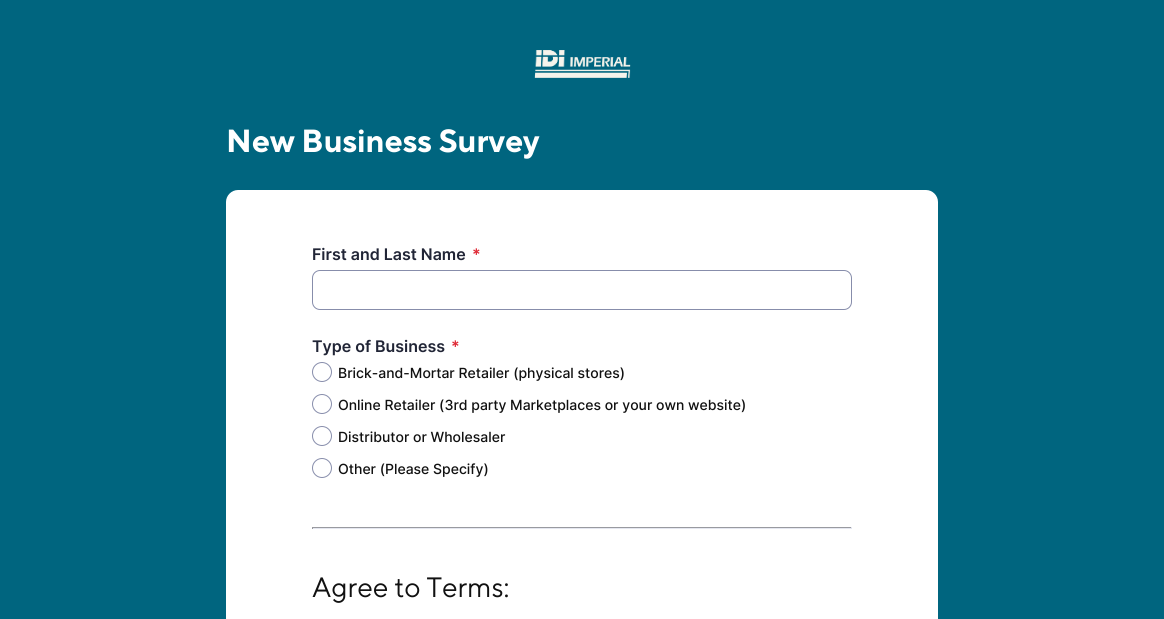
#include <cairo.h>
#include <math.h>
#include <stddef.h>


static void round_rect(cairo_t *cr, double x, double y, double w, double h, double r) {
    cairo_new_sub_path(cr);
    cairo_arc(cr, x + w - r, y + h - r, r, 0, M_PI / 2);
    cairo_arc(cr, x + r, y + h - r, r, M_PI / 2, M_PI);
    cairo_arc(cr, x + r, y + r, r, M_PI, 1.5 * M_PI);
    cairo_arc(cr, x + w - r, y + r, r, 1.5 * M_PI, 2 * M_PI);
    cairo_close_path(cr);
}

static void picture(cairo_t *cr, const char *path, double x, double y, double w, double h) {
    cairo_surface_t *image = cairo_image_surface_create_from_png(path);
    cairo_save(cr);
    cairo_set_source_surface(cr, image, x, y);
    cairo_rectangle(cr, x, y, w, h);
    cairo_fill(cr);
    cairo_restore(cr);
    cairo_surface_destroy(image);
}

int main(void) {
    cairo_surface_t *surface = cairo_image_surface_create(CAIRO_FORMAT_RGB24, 1164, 619);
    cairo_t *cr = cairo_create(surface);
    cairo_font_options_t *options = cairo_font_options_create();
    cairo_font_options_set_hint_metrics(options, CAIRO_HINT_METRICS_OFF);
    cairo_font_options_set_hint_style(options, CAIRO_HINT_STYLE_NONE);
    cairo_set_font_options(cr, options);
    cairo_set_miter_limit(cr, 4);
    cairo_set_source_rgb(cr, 0, 0.396, 0.498);
    cairo_paint(cr);
    picture(cr, "img1.png", 534, 50, 97, 28);
    cairo_select_font_face(cr, "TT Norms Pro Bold", CAIRO_FONT_SLANT_NORMAL, CAIRO_FONT_WEIGHT_BOLD);
    cairo_set_font_size(cr, 32);
    cairo_set_source_rgb(cr, 1, 1, 1);
    cairo_move_to(cr, 226, 152);
    cairo_show_text(cr, "New Business Survey");
    cairo_new_path(cr);
    cairo_move_to(cr, 238, 190);
    cairo_line_to(cr, 926, 190);
    cairo_curve_to(cr, 932.5, 190, 938, 195.5, 938, 202);
    cairo_line_to(cr, 938, 619);
    cairo_line_to(cr, 226, 619);
    cairo_line_to(cr, 226, 202);
    cairo_curve_to(cr, 226, 195.5, 231.5, 190, 238, 190);
    cairo_close_path(cr);
    cairo_fill(cr);
    cairo_select_font_face(cr, "Inter SemiBold", CAIRO_FONT_SLANT_NORMAL, CAIRO_FONT_WEIGHT_NORMAL);
    cairo_set_font_size(cr, 16);
    cairo_set_source_rgb(cr, 0.129, 0.145, 0.212);
    cairo_move_to(cr, 312, 260);
    cairo_show_text(cr, "First and Last Name");
    cairo_set_source_rgb(cr, 0.875, 0.165, 0.212);
    cairo_move_to(cr, 472, 260);
    cairo_show_text(cr, "*");
    round_rect(cr, 312.5, 270.5, 539, 39, 7.5);
    cairo_set_source_rgb(cr, 0.529, 0.553, 0.671);
    cairo_set_line_width(cr, 1);
    cairo_stroke(cr);
    cairo_set_source_rgb(cr, 0.129, 0.145, 0.212);
    cairo_move_to(cr, 312, 352);
    cairo_show_text(cr, "Type of Business");
    cairo_set_source_rgb(cr, 0.875, 0.165, 0.212);
    cairo_move_to(cr, 451, 352);
    cairo_show_text(cr, "*");
    cairo_new_path(cr);
    cairo_arc(cr, 322, 372, 9.5, 0, 2 * M_PI);
    cairo_set_source_rgb(cr, 0.529, 0.553, 0.671);
    cairo_stroke(cr);
    cairo_select_font_face(cr, "Inter Medium", CAIRO_FONT_SLANT_NORMAL, CAIRO_FONT_WEIGHT_NORMAL);
    cairo_set_font_size(cr, 14);
    cairo_set_source_rgb(cr, 0.067, 0.067, 0.067);
    cairo_move_to(cr, 338, 378);
    cairo_show_text(cr, "Brick-and-Mortar Retailer (physical stores)");
    cairo_new_path(cr);
    cairo_arc(cr, 322, 404, 9.5, 0, 2 * M_PI);
    cairo_set_source_rgb(cr, 0.529, 0.553, 0.671);
    cairo_stroke(cr);
    cairo_set_source_rgb(cr, 0.067, 0.067, 0.067);
    cairo_move_to(cr, 338, 410);
    cairo_show_text(cr, "Online Retailer (3rd party Marketplaces or your own website)");
    cairo_new_path(cr);
    cairo_arc(cr, 322, 436, 9.5, 0, 2 * M_PI);
    cairo_set_source_rgb(cr, 0.529, 0.553, 0.671);
    cairo_stroke(cr);
    cairo_set_source_rgb(cr, 0.067, 0.067, 0.067);
    cairo_move_to(cr, 338, 442);
    cairo_show_text(cr, "Distributor or Wholesaler");
    cairo_new_path(cr);
    cairo_arc(cr, 322, 468, 9.5, 0, 2 * M_PI);
    cairo_set_source_rgb(cr, 0.529, 0.553, 0.671);
    cairo_stroke(cr);
    cairo_set_source_rgb(cr, 0.067, 0.067, 0.067);
    cairo_move_to(cr, 338, 474);
    cairo_show_text(cr, "Other (Please Specify)");
    cairo_set_source_rgb(cr, 0.6, 0.604, 0.627);
    cairo_rectangle(cr, 312, 527, 540, 1);
    cairo_fill(cr);
    cairo_set_source_rgb(cr, 0.898, 0.906, 0.941);
    cairo_rectangle(cr, 851, 527, 1, 2);
    cairo_fill(cr);
    cairo_rectangle(cr, 312, 528, 540, 1);
    cairo_fill(cr);
    cairo_set_source_rgb(cr, 0.6, 0.604, 0.627);
    cairo_rectangle(cr, 312, 527, 1, 2);
    cairo_fill(cr);
    cairo_select_font_face(cr, "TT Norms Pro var", CAIRO_FONT_SLANT_NORMAL, CAIRO_FONT_WEIGHT_NORMAL);
    cairo_set_font_size(cr, 28);
    cairo_set_source_rgb(cr, 0.067, 0.067, 0.067);
    cairo_move_to(cr, 312, 597);
    cairo_show_text(cr, "Agree to Terms:");
    cairo_surface_write_to_png(surface, "page.png");
    cairo_font_options_destroy(options);
    cairo_destroy(cr);
    cairo_surface_destroy(surface);
    return 0;
}
